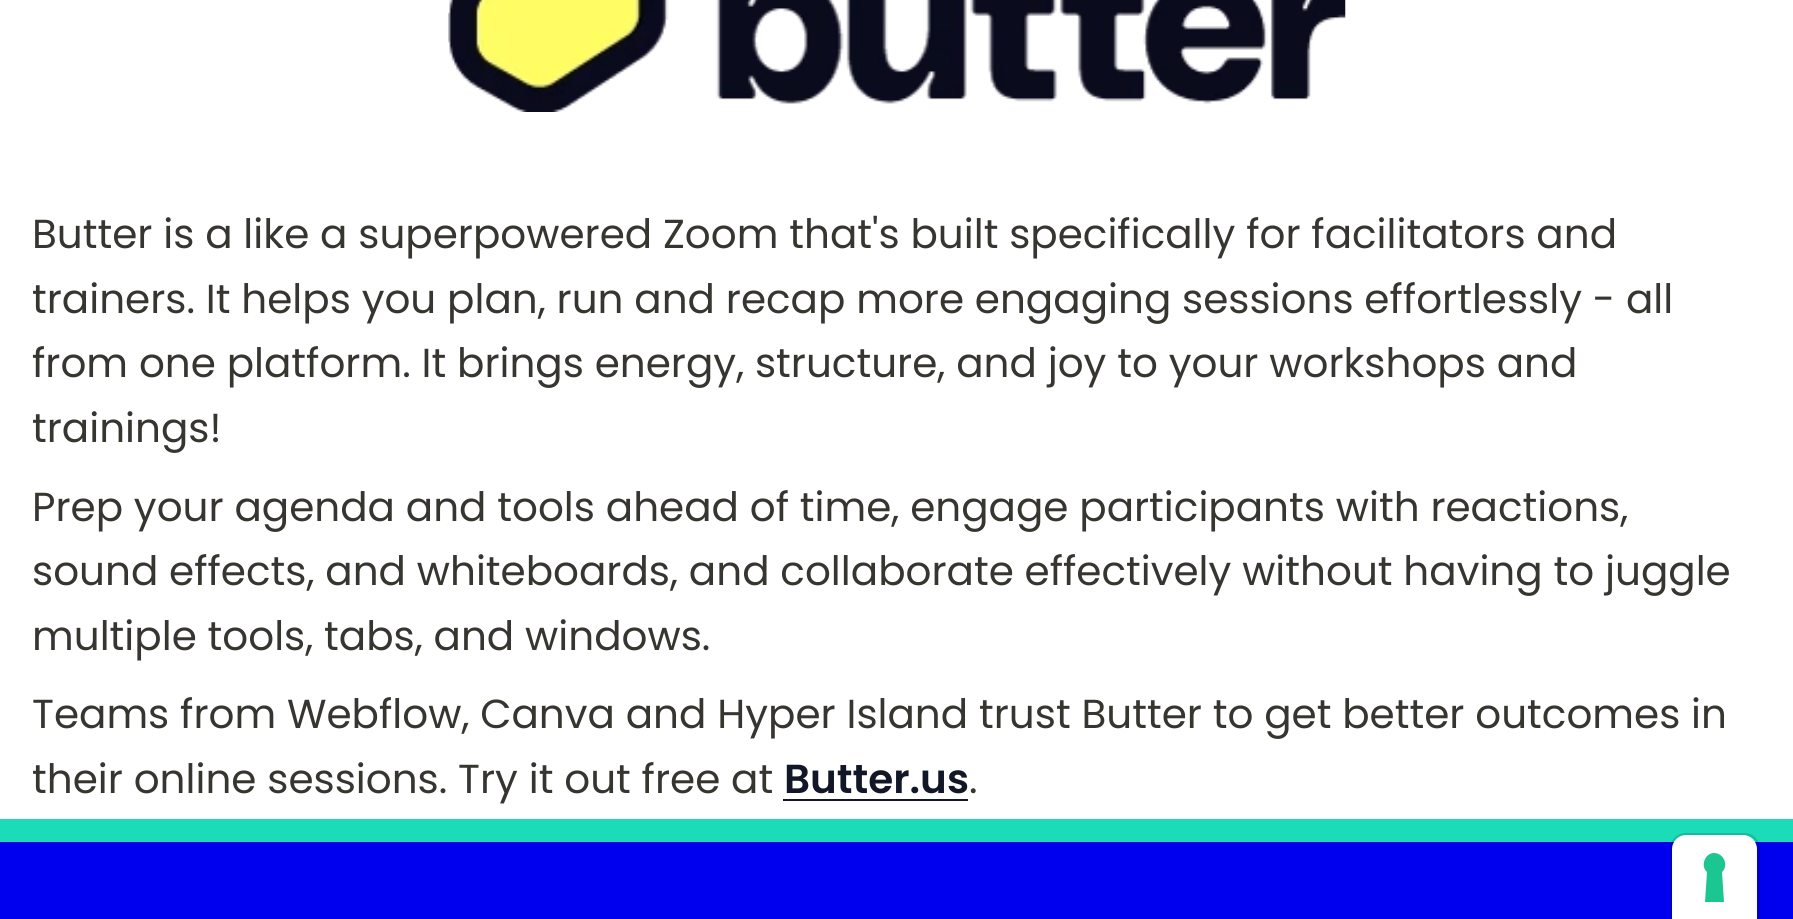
#include <cairo.h>
#include <math.h>
#include <stddef.h>


static void picture(cairo_t *cr, const char *path, double x, double y, double w, double h) {
    cairo_surface_t *image = cairo_image_surface_create_from_png(path);
    cairo_save(cr);
    cairo_set_source_surface(cr, image, x, y);
    cairo_rectangle(cr, x, y, w, h);
    cairo_fill(cr);
    cairo_restore(cr);
    cairo_surface_destroy(image);
}

int main(void) {
    cairo_surface_t *surface = cairo_image_surface_create(CAIRO_FORMAT_RGB24, 1793, 919);
    cairo_t *cr = cairo_create(surface);
    cairo_font_options_t *options = cairo_font_options_create();
    cairo_font_options_set_hint_metrics(options, CAIRO_HINT_METRICS_OFF);
    cairo_font_options_set_hint_style(options, CAIRO_HINT_STYLE_NONE);
    cairo_set_font_options(cr, options);
    cairo_set_miter_limit(cr, 4);
    cairo_set_source_rgb(cr, 1, 1, 1);
    cairo_paint(cr);
    picture(cr, "img1.png", 448, 0, 898, 112);
    cairo_select_font_face(cr, "Poppins", CAIRO_FONT_SLANT_NORMAL, CAIRO_FONT_WEIGHT_NORMAL);
    cairo_set_font_size(cr, 40.5);
    cairo_set_source_rgb(cr, 0.216, 0.208, 0.184);
    cairo_move_to(cr, 32, 248);
    cairo_show_text(cr, "Butter is a like a superpowered Zoom that's built specifically for facilitators and");
    cairo_move_to(cr, 32, 313);
    cairo_show_text(cr, "trainers. It helps you plan, run and recap more engaging sessions effortlessly - all");
    cairo_move_to(cr, 32, 377);
    cairo_show_text(cr, "from one platform. It brings energy, structure, and joy to your workshops and");
    cairo_move_to(cr, 32, 442);
    cairo_show_text(cr, "trainings!");
    cairo_move_to(cr, 32, 521);
    cairo_show_text(cr, "Prep your agenda and tools ahead of time, engage participants with reactions,");
    cairo_move_to(cr, 32, 585);
    cairo_show_text(cr, "sound effects, and whiteboards, and collaborate effectively without having to juggle");
    cairo_move_to(cr, 32, 650);
    cairo_show_text(cr, "multiple tools, tabs, and windows.");
    cairo_move_to(cr, 32, 728);
    cairo_show_text(cr, "Teams from Webflow, Canva and Hyper Island trust Butter to get better outcomes in");
    cairo_move_to(cr, 32, 793);
    cairo_show_text(cr, "their online sessions. Try it out free at");
    cairo_select_font_face(cr, "Poppins SemiBold", CAIRO_FONT_SLANT_NORMAL, CAIRO_FONT_WEIGHT_NORMAL);
    cairo_set_source_rgb(cr, 0.067, 0.09, 0.153);
    cairo_move_to(cr, 784, 793);
    cairo_show_text(cr, "Butter.us");
    cairo_rectangle(cr, 783, 799, 185, 2);
    cairo_fill(cr);
    cairo_select_font_face(cr, "Poppins", CAIRO_FONT_SLANT_NORMAL, CAIRO_FONT_WEIGHT_NORMAL);
    cairo_set_source_rgb(cr, 0.216, 0.208, 0.184);
    cairo_move_to(cr, 969, 793);
    cairo_show_text(cr, ".");
    cairo_set_source_rgb(cr, 0, 0, 0.933);
    cairo_rectangle(cr, 0, 842, 1793, 77);
    cairo_fill(cr);
    cairo_set_source_rgb(cr, 0.106, 0.859, 0.722);
    cairo_rectangle(cr, 0, 819, 1793, 23);
    cairo_fill(cr);
    cairo_new_path(cr);
    cairo_move_to(cr, 1686, 834);
    cairo_line_to(cr, 1744, 834);
    cairo_curve_to(cr, 1752.5, 834, 1759, 840.5, 1759, 849);
    cairo_line_to(cr, 1759, 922);
    cairo_line_to(cr, 1671, 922);
    cairo_line_to(cr, 1671, 849);
    cairo_curve_to(cr, 1671, 840.5, 1677.5, 834, 1686, 834);
    cairo_close_path(cr);
    cairo_set_source_rgba(cr, 0, 0, 0, 0.15);
    cairo_stroke(cr);
    cairo_set_source_rgb(cr, 1, 1, 1);
    cairo_new_path(cr);
    cairo_move_to(cr, 1686, 835);
    cairo_line_to(cr, 1743, 835);
    cairo_curve_to(cr, 1750.5, 835, 1757, 841.5, 1757, 849);
    cairo_line_to(cr, 1757, 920);
    cairo_line_to(cr, 1672, 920);
    cairo_line_to(cr, 1672, 849);
    cairo_curve_to(cr, 1672, 841.5, 1678.5, 835, 1686, 835);
    cairo_close_path(cr);
    cairo_fill(cr);
    cairo_set_source_rgb(cr, 0.11, 0.776, 0.569);
    cairo_set_fill_rule(cr, CAIRO_FILL_RULE_EVEN_ODD);
    cairo_new_path(cr);
    cairo_move_to(cr, 1714, 853);
    cairo_curve_to(cr, 1724, 853, 1729, 866, 1722, 872);
    cairo_line_to(cr, 1724, 902);
    cairo_line_to(cr, 1705, 902);
    cairo_line_to(cr, 1707, 872);
    cairo_curve_to(cr, 1700, 866, 1705, 853, 1714, 853);
    cairo_close_path(cr);
    cairo_fill(cr);
    cairo_surface_write_to_png(surface, "page.png");
    cairo_font_options_destroy(options);
    cairo_destroy(cr);
    cairo_surface_destroy(surface);
    return 0;
}
